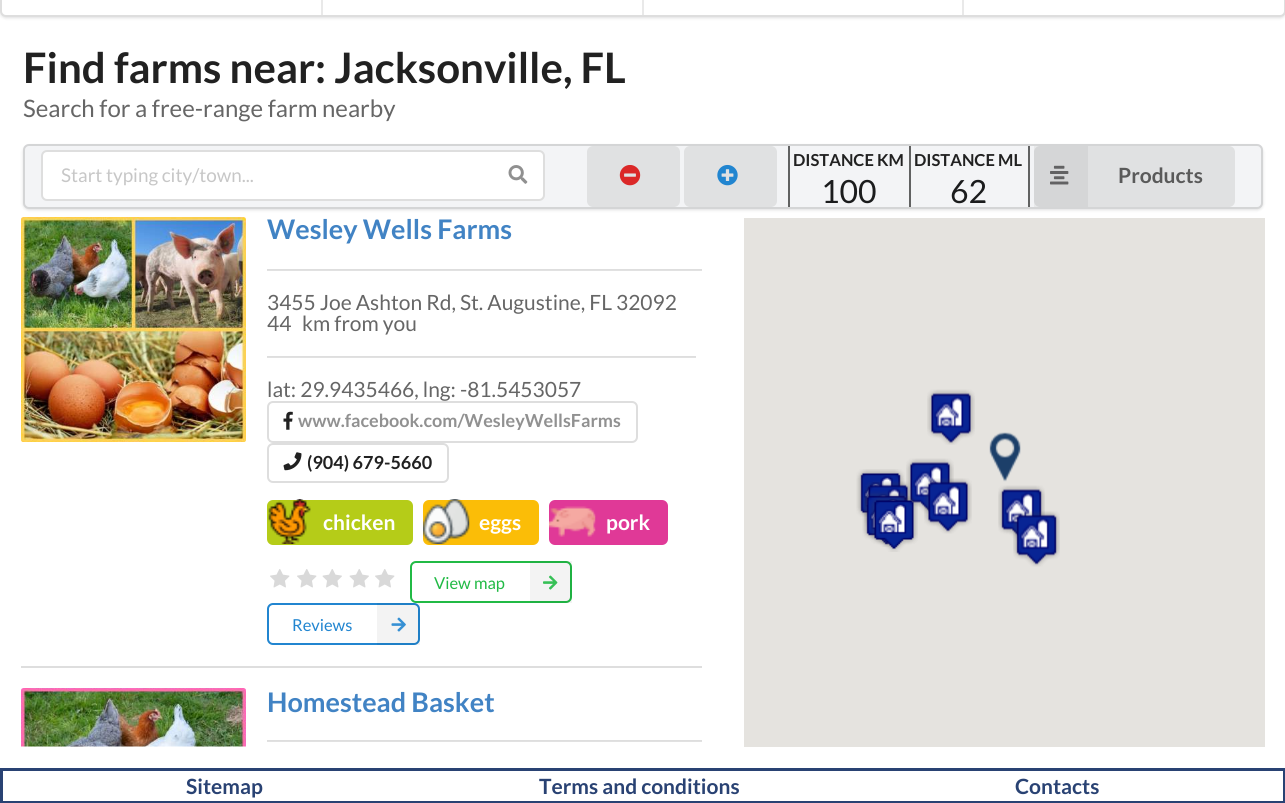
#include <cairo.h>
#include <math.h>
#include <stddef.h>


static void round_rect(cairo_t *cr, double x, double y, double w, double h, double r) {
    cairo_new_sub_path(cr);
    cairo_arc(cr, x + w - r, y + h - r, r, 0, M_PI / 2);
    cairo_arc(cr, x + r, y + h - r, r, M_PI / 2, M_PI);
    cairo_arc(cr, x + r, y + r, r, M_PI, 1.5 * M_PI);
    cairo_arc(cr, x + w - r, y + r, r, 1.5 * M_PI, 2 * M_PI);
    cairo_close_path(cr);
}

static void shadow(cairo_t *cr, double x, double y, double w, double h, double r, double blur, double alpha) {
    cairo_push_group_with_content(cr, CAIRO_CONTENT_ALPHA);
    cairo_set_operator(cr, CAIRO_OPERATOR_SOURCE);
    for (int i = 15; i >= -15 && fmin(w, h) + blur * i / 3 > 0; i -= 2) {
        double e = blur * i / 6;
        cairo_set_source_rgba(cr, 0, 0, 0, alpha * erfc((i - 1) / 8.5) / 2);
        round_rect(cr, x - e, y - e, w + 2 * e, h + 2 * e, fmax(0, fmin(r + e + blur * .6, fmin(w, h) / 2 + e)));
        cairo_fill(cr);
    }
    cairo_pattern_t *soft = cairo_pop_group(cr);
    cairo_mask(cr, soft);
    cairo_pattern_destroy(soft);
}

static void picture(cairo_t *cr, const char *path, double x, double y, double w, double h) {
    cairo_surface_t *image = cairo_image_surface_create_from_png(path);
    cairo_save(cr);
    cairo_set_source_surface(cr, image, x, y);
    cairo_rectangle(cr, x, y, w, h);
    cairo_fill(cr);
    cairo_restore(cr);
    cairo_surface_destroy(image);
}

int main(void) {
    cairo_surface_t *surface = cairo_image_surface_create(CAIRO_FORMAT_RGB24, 1285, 803);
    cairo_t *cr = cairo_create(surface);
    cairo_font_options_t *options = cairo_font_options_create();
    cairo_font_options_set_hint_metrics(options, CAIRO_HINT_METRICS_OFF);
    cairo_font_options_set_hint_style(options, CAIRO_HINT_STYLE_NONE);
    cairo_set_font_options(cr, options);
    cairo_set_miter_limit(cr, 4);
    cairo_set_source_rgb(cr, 1, 1, 1);
    cairo_paint(cr);
    cairo_set_source_rgb(cr, 0.133, 0.141, 0.149);
    shadow(cr, 0, -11, 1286, 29, 6, 1.5, 0.15);
    cairo_set_source_rgb(cr, 1, 1, 1);
    round_rect(cr, 0, -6, 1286, 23, 6);
    cairo_fill(cr);
    round_rect(cr, 1, -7, 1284, 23, 5);
    cairo_set_source_rgba(cr, 0.133, 0.141, 0.149, 0.15);
    cairo_stroke(cr);
    cairo_set_source_rgb(cr, 0.914, 0.914, 0.914);
    cairo_rectangle(cr, 321, 0, 2, 15);
    cairo_fill(cr);
    cairo_rectangle(cr, 642, 0, 2, 15);
    cairo_fill(cr);
    cairo_rectangle(cr, 962, 0, 2, 15);
    cairo_fill(cr);
    cairo_select_font_face(cr, "Lato", CAIRO_FONT_SLANT_NORMAL, CAIRO_FONT_WEIGHT_BOLD);
    cairo_set_font_size(cr, 42);
    cairo_set_source_rgb(cr, 0.129, 0.129, 0.129);
    cairo_move_to(cr, 23, 83);
    cairo_show_text(cr, "Find farms near: Jacksonville, FL");
    cairo_select_font_face(cr, "Lato", CAIRO_FONT_SLANT_NORMAL, CAIRO_FONT_WEIGHT_NORMAL);
    cairo_set_font_size(cr, 24);
    cairo_set_source_rgb(cr, 0.4, 0.4, 0.4);
    cairo_move_to(cr, 23, 117);
    cairo_show_text(cr, "Search for a free-range farm nearby");
    cairo_set_source_rgb(cr, 0.133, 0.141, 0.149);
    shadow(cr, 23, 146, 1240, 64, 6, 1.5, 0.15);
    cairo_set_source_rgb(cr, 0.953, 0.957, 0.961);
    round_rect(cr, 23, 144, 1240, 65, 6);
    cairo_fill(cr);
    round_rect(cr, 24, 145, 1238, 63, 5);
    cairo_set_source_rgba(cr, 0.133, 0.141, 0.149, 0.15);
    cairo_stroke(cr);
    cairo_set_source_rgb(cr, 1, 1, 1);
    round_rect(cr, 41, 150, 504, 51, 6);
    cairo_fill(cr);
    round_rect(cr, 42, 151, 502, 49, 5);
    cairo_set_source_rgba(cr, 0.133, 0.141, 0.149, 0.15);
    cairo_stroke(cr);
    cairo_set_font_size(cr, 18.9);
    cairo_set_source_rgb(cr, 0.78, 0.78, 0.78);
    cairo_move_to(cr, 61, 182);
    cairo_show_text(cr, "Start typing city/town...");
    picture(cr, "img1.png", 508, 165, 20, 19);
    cairo_set_source_rgb(cr, 0.878, 0.882, 0.886);
    round_rect(cr, 587, 146, 93, 61, 6);
    cairo_fill(cr);
    picture(cr, "img2.png", 619, 165, 22, 21);
    round_rect(cr, 684, 146, 93, 61, 6);
    cairo_fill(cr);
    picture(cr, "img3.png", 717, 164, 21, 22);
    cairo_set_source_rgb(cr, 0.38, 0.384, 0.384);
    cairo_rectangle(cr, 788, 146, 2, 61);
    cairo_fill(cr);
    cairo_select_font_face(cr, "Lato", CAIRO_FONT_SLANT_NORMAL, CAIRO_FONT_WEIGHT_BOLD);
    cairo_set_font_size(cr, 16.5);
    cairo_set_source_rgb(cr, 0.129, 0.129, 0.129);
    cairo_move_to(cr, 793, 166);
    cairo_show_text(cr, "DISTANCE KM");
    cairo_select_font_face(cr, "Lato", CAIRO_FONT_SLANT_NORMAL, CAIRO_FONT_WEIGHT_NORMAL);
    cairo_set_font_size(cr, 32);
    cairo_set_source_rgb(cr, 0.106, 0.11, 0.114);
    cairo_move_to(cr, 821, 203);
    cairo_show_text(cr, "100");
    cairo_set_source_rgb(cr, 0.38, 0.384, 0.384);
    cairo_rectangle(cr, 909, 146, 2, 61);
    cairo_fill(cr);
    cairo_select_font_face(cr, "Lato", CAIRO_FONT_SLANT_NORMAL, CAIRO_FONT_WEIGHT_BOLD);
    cairo_set_font_size(cr, 16.5);
    cairo_set_source_rgb(cr, 0.129, 0.129, 0.129);
    cairo_move_to(cr, 914, 166);
    cairo_show_text(cr, "DISTANCE ML");
    cairo_select_font_face(cr, "Lato", CAIRO_FONT_SLANT_NORMAL, CAIRO_FONT_WEIGHT_NORMAL);
    cairo_set_font_size(cr, 32);
    cairo_set_source_rgb(cr, 0.106, 0.11, 0.114);
    cairo_move_to(cr, 950, 203);
    cairo_show_text(cr, "62");
    cairo_set_source_rgb(cr, 0.38, 0.384, 0.384);
    cairo_rectangle(cr, 1028, 146, 2, 61);
    cairo_fill(cr);
    cairo_set_source_rgb(cr, 0.878, 0.882, 0.886);
    round_rect(cr, 1034, 146, 201, 61, 6);
    cairo_fill(cr);
    cairo_set_source_rgba(cr, 0, 0, 0, 0.05);
    cairo_rectangle(cr, 1034, 146, 54, 61);
    cairo_fill(cr);
    picture(cr, "img4.png", 1050, 165, 19, 20);
    cairo_select_font_face(cr, "Lato", CAIRO_FONT_SLANT_NORMAL, CAIRO_FONT_WEIGHT_BOLD);
    cairo_set_font_size(cr, 21);
    cairo_set_source_rgb(cr, 0.353, 0.353, 0.353);
    cairo_move_to(cr, 1118, 183);
    cairo_show_text(cr, "Products");
    picture(cr, "img5.png", 21, 217, 225, 225);
    cairo_set_font_size(cr, 27);
    cairo_set_source_rgb(cr, 0.255, 0.514, 0.769);
    cairo_move_to(cr, 267, 239);
    cairo_show_text(cr, "Wesley Wells Farms");
    cairo_set_source_rgb(cr, 0.871, 0.871, 0.871);
    cairo_rectangle(cr, 267, 269, 435, 1);
    cairo_fill(cr);
    cairo_set_source_rgb(cr, 0.882, 0.882, 0.882);
    cairo_rectangle(cr, 267, 270, 435, 1);
    cairo_fill(cr);
    cairo_select_font_face(cr, "Lato", CAIRO_FONT_SLANT_NORMAL, CAIRO_FONT_WEIGHT_NORMAL);
    cairo_set_font_size(cr, 21);
    cairo_set_source_rgb(cr, 0.4, 0.4, 0.4);
    cairo_move_to(cr, 267, 310);
    cairo_show_text(cr, "3455 Joe Ashton Rd, St. Augustine, FL 32092");
    cairo_move_to(cr, 267, 331);
    cairo_show_text(cr, "44");
    cairo_move_to(cr, 302, 331);
    cairo_show_text(cr, "km from you");
    cairo_set_source_rgb(cr, 0.871, 0.871, 0.871);
    cairo_rectangle(cr, 267, 356, 429, 1);
    cairo_fill(cr);
    cairo_set_source_rgb(cr, 0.882, 0.882, 0.882);
    cairo_rectangle(cr, 267, 357, 429, 1);
    cairo_fill(cr);
    cairo_set_source_rgb(cr, 0.4, 0.4, 0.4);
    cairo_move_to(cr, 267, 397);
    cairo_show_text(cr, "lat: 29.9435466, lng: -81.5453057");
    round_rect(cr, 268, 402, 369, 40, 5);
    cairo_set_source_rgb(cr, 0.871, 0.871, 0.871);
    cairo_stroke(cr);
    picture(cr, "img6.png", 283, 411, 10, 19);
    cairo_select_font_face(cr, "Lato", CAIRO_FONT_SLANT_NORMAL, CAIRO_FONT_WEIGHT_BOLD);
    cairo_set_font_size(cr, 18);
    cairo_set_source_rgb(cr, 0.569, 0.569, 0.569);
    cairo_move_to(cr, 298, 427);
    cairo_show_text(cr, "www.facebook.com/WesleyWellsFarms");
    round_rect(cr, 268, 444, 180, 38, 5);
    cairo_set_source_rgb(cr, 0.871, 0.871, 0.871);
    cairo_stroke(cr);
    picture(cr, "img7.png", 283, 452, 19, 19);
    cairo_set_source_rgb(cr, 0.129, 0.129, 0.129);
    cairo_move_to(cr, 307, 469);
    cairo_show_text(cr, "(904) 679-5660");
    cairo_set_source_rgb(cr, 0.71, 0.8, 0.094);
    round_rect(cr, 267, 500, 146, 45, 6);
    cairo_fill(cr);
    picture(cr, "img8.png", 268, 499, 43, 45);
    cairo_set_font_size(cr, 21);
    cairo_set_source_rgb(cr, 1, 1, 1);
    cairo_move_to(cr, 323, 530);
    cairo_show_text(cr, "chicken");
    cairo_set_source_rgb(cr, 0.984, 0.741, 0.031);
    round_rect(cr, 423, 500, 116, 45, 6);
    cairo_fill(cr);
    picture(cr, "img9.png", 423, 499, 47, 45);
    cairo_set_source_rgb(cr, 1, 1, 1);
    cairo_move_to(cr, 479, 530);
    cairo_show_text(cr, "eggs");
    cairo_set_source_rgb(cr, 0.878, 0.224, 0.592);
    round_rect(cr, 549, 500, 119, 45, 6);
    cairo_fill(cr);
    picture(cr, "img10.png", 549, 506, 47, 31);
    cairo_set_source_rgb(cr, 1, 1, 1);
    cairo_move_to(cr, 606, 530);
    cairo_show_text(cr, "pork");
    picture(cr, "img11.png", 270, 569, 20, 19);
    picture(cr, "img11.png", 297, 569, 20, 19);
    picture(cr, "img12.png", 322, 569, 20, 19);
    picture(cr, "img12.png", 349, 569, 20, 19);
    picture(cr, "img11.png", 375, 569, 20, 19);
    round_rect(cr, 411, 562, 160, 40, 5);
    cairo_set_source_rgb(cr, 0.129, 0.729, 0.271);
    cairo_stroke(cr);
    cairo_select_font_face(cr, "Lato", CAIRO_FONT_SLANT_NORMAL, CAIRO_FONT_WEIGHT_NORMAL);
    cairo_set_font_size(cr, 16.5);
    cairo_move_to(cr, 434, 589);
    cairo_show_text(cr, "View map");
    cairo_set_source_rgba(cr, 0, 0, 0, 0.05);
    cairo_rectangle(cr, 530, 561, 42, 42);
    cairo_fill(cr);
    picture(cr, "img13.png", 543, 575, 15, 15);
    round_rect(cr, 268, 604, 151, 40, 5);
    cairo_set_source_rgb(cr, 0.129, 0.522, 0.816);
    cairo_stroke(cr);
    cairo_move_to(cr, 292, 631);
    cairo_show_text(cr, "Reviews");
    cairo_set_source_rgba(cr, 0, 0, 0, 0.05);
    cairo_rectangle(cr, 377, 603, 43, 42);
    cairo_fill(cr);
    picture(cr, "img14.png", 391, 617, 15, 15);
    cairo_set_source_rgb(cr, 0.871, 0.871, 0.871);
    cairo_rectangle(cr, 21, 666, 681, 2);
    cairo_fill(cr);
    picture(cr, "img15.png", 21, 688, 225, 59);
    cairo_select_font_face(cr, "Lato", CAIRO_FONT_SLANT_NORMAL, CAIRO_FONT_WEIGHT_BOLD);
    cairo_set_font_size(cr, 27);
    cairo_set_source_rgb(cr, 0.255, 0.514, 0.769);
    cairo_move_to(cr, 267, 712);
    cairo_show_text(cr, "Homestead Basket");
    cairo_set_source_rgb(cr, 0.871, 0.871, 0.871);
    cairo_rectangle(cr, 267, 740, 435, 1);
    cairo_fill(cr);
    cairo_set_source_rgb(cr, 0.882, 0.882, 0.882);
    cairo_rectangle(cr, 267, 741, 435, 1);
    cairo_fill(cr);
    cairo_set_source_rgb(cr, 0.898, 0.89, 0.875);
    cairo_rectangle(cr, 744, 218, 521, 529);
    cairo_fill(cr);
    picture(cr, "img16.png", 927, 389, 48, 56);
    picture(cr, "img17.png", 856, 469, 49, 48);
    picture(cr, "img16.png", 906, 458, 48, 56);
    picture(cr, "img18.png", 989, 432, 32, 50);
    picture(cr, "img19.png", 864, 481, 48, 47);
    picture(cr, "img20.png", 924, 478, 48, 56);
    picture(cr, "img21.png", 998, 485, 47, 56);
    picture(cr, "img22.png", 862, 491, 49, 56);
    picture(cr, "img23.png", 870, 496, 48, 56);
    picture(cr, "img24.png", 1013, 511, 47, 56);
    cairo_rectangle(cr, 1.5, 769.5, 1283, 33);
    cairo_set_source_rgb(cr, 0.161, 0.259, 0.451);
    cairo_set_line_width(cr, 3);
    cairo_stroke(cr);
    cairo_set_font_size(cr, 21);
    cairo_move_to(cr, 186, 794);
    cairo_show_text(cr, "Sitemap");
    cairo_move_to(cr, 539, 794);
    cairo_show_text(cr, "Terms and conditions");
    cairo_move_to(cr, 1015, 794);
    cairo_show_text(cr, "Contacts");
    cairo_surface_write_to_png(surface, "page.png");
    cairo_font_options_destroy(options);
    cairo_destroy(cr);
    cairo_surface_destroy(surface);
    return 0;
}
